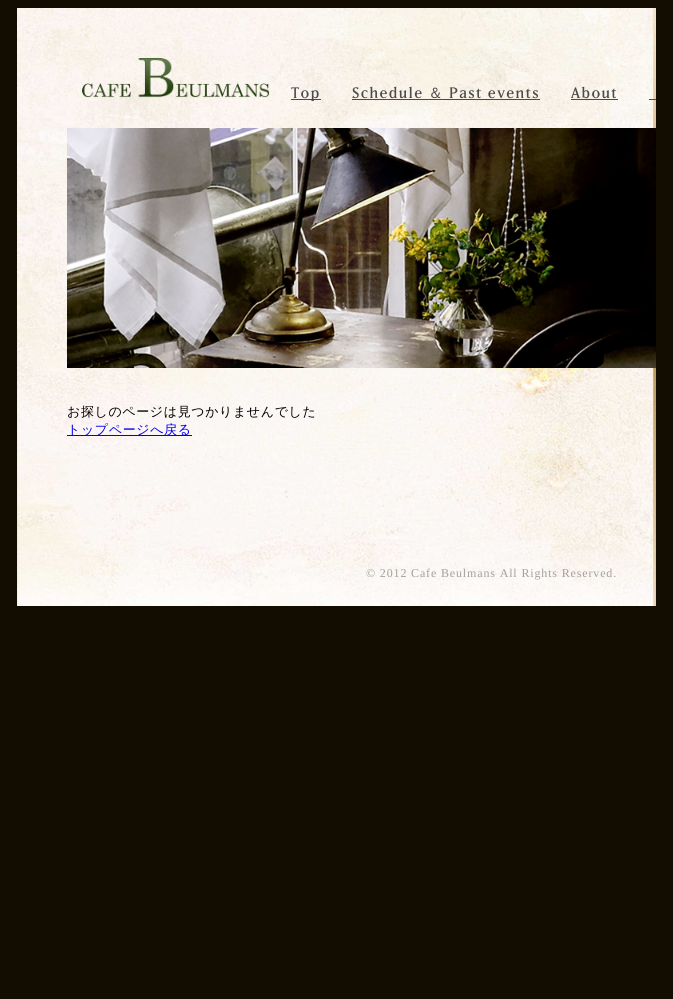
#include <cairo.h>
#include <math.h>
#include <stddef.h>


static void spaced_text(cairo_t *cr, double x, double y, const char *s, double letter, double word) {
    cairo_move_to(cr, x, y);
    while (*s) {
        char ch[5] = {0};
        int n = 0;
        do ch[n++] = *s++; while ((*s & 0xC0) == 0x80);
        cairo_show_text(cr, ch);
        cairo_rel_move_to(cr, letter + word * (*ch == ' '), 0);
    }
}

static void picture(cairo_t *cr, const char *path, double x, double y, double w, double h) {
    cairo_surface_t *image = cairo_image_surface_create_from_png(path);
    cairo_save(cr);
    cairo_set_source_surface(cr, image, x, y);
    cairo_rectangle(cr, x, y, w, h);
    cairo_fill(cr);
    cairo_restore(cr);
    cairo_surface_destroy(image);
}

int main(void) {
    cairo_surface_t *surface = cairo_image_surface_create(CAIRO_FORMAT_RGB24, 673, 999);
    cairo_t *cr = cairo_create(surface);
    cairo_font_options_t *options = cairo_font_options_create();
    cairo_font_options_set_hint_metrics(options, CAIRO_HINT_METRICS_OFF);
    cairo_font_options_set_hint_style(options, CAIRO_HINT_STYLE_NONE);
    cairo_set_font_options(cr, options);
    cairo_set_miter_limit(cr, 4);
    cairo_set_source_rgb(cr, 0.078, 0.047, 0.004);
    cairo_paint(cr);
    picture(cr, "img1.png", 17, 8, 639, 598);
    picture(cr, "img2.png", 82, 58, 188, 40);
    cairo_set_source_rgb(cr, 0.294, 0.294, 0.294);
    cairo_rectangle(cr, 291, 99, 30, 1);
    cairo_fill(cr);
    cairo_select_font_face(cr, "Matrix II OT", CAIRO_FONT_SLANT_NORMAL, CAIRO_FONT_WEIGHT_NORMAL);
    cairo_set_font_size(cr, 15);
    spaced_text(cr, 291, 98, "Top", 1.4, 0);
    spaced_text(cr, 352, 98, "Schedule", 1.4, 0);
    cairo_select_font_face(cr, "WenQuanYi Zen Hei Medium", CAIRO_FONT_SLANT_NORMAL, CAIRO_FONT_WEIGHT_NORMAL);
    spaced_text(cr, 428, 98, "＆", 1.4, 0);
    cairo_rectangle(cr, 352, 99, 188, 1);
    cairo_fill(cr);
    cairo_select_font_face(cr, "Matrix II OT", CAIRO_FONT_SLANT_NORMAL, CAIRO_FONT_WEIGHT_NORMAL);
    spaced_text(cr, 449, 98, "Past events", 1.4, 0);
    spaced_text(cr, 571, 98, "About", 1.4, 0);
    cairo_rectangle(cr, 571, 99, 47, 1);
    cairo_fill(cr);
    cairo_rectangle(cr, 649, 99, 7, 1);
    cairo_fill(cr);
    picture(cr, "img3.png", 67, 128, 589, 240);
    cairo_select_font_face(cr, "WenQuanYi Zen Hei Medium", CAIRO_FONT_SLANT_NORMAL, CAIRO_FONT_WEIGHT_NORMAL);
    cairo_set_font_size(cr, 13);
    cairo_set_source_rgb(cr, 0, 0, 0);
    spaced_text(cr, 67, 416, "お探しのページは見つかりませんでした", 0.6, 0);
    cairo_set_source_rgb(cr, 0, 0, 0.933);
    cairo_rectangle(cr, 67, 435, 125, 1);
    cairo_fill(cr);
    spaced_text(cr, 67, 434, "トップページへ戻る", 0.6, 0);
    cairo_select_font_face(cr, "Liberation Serif", CAIRO_FONT_SLANT_NORMAL, CAIRO_FONT_WEIGHT_NORMAL);
    cairo_set_font_size(cr, 12);
    cairo_set_source_rgb(cr, 0.639, 0.627, 0.62);
    spaced_text(cr, 366, 577, "© 2012 Cafe Beulmans All Rights Reserved.", 0.85, 0);
    cairo_surface_write_to_png(surface, "page.png");
    cairo_font_options_destroy(options);
    cairo_destroy(cr);
    cairo_surface_destroy(surface);
    return 0;
}
